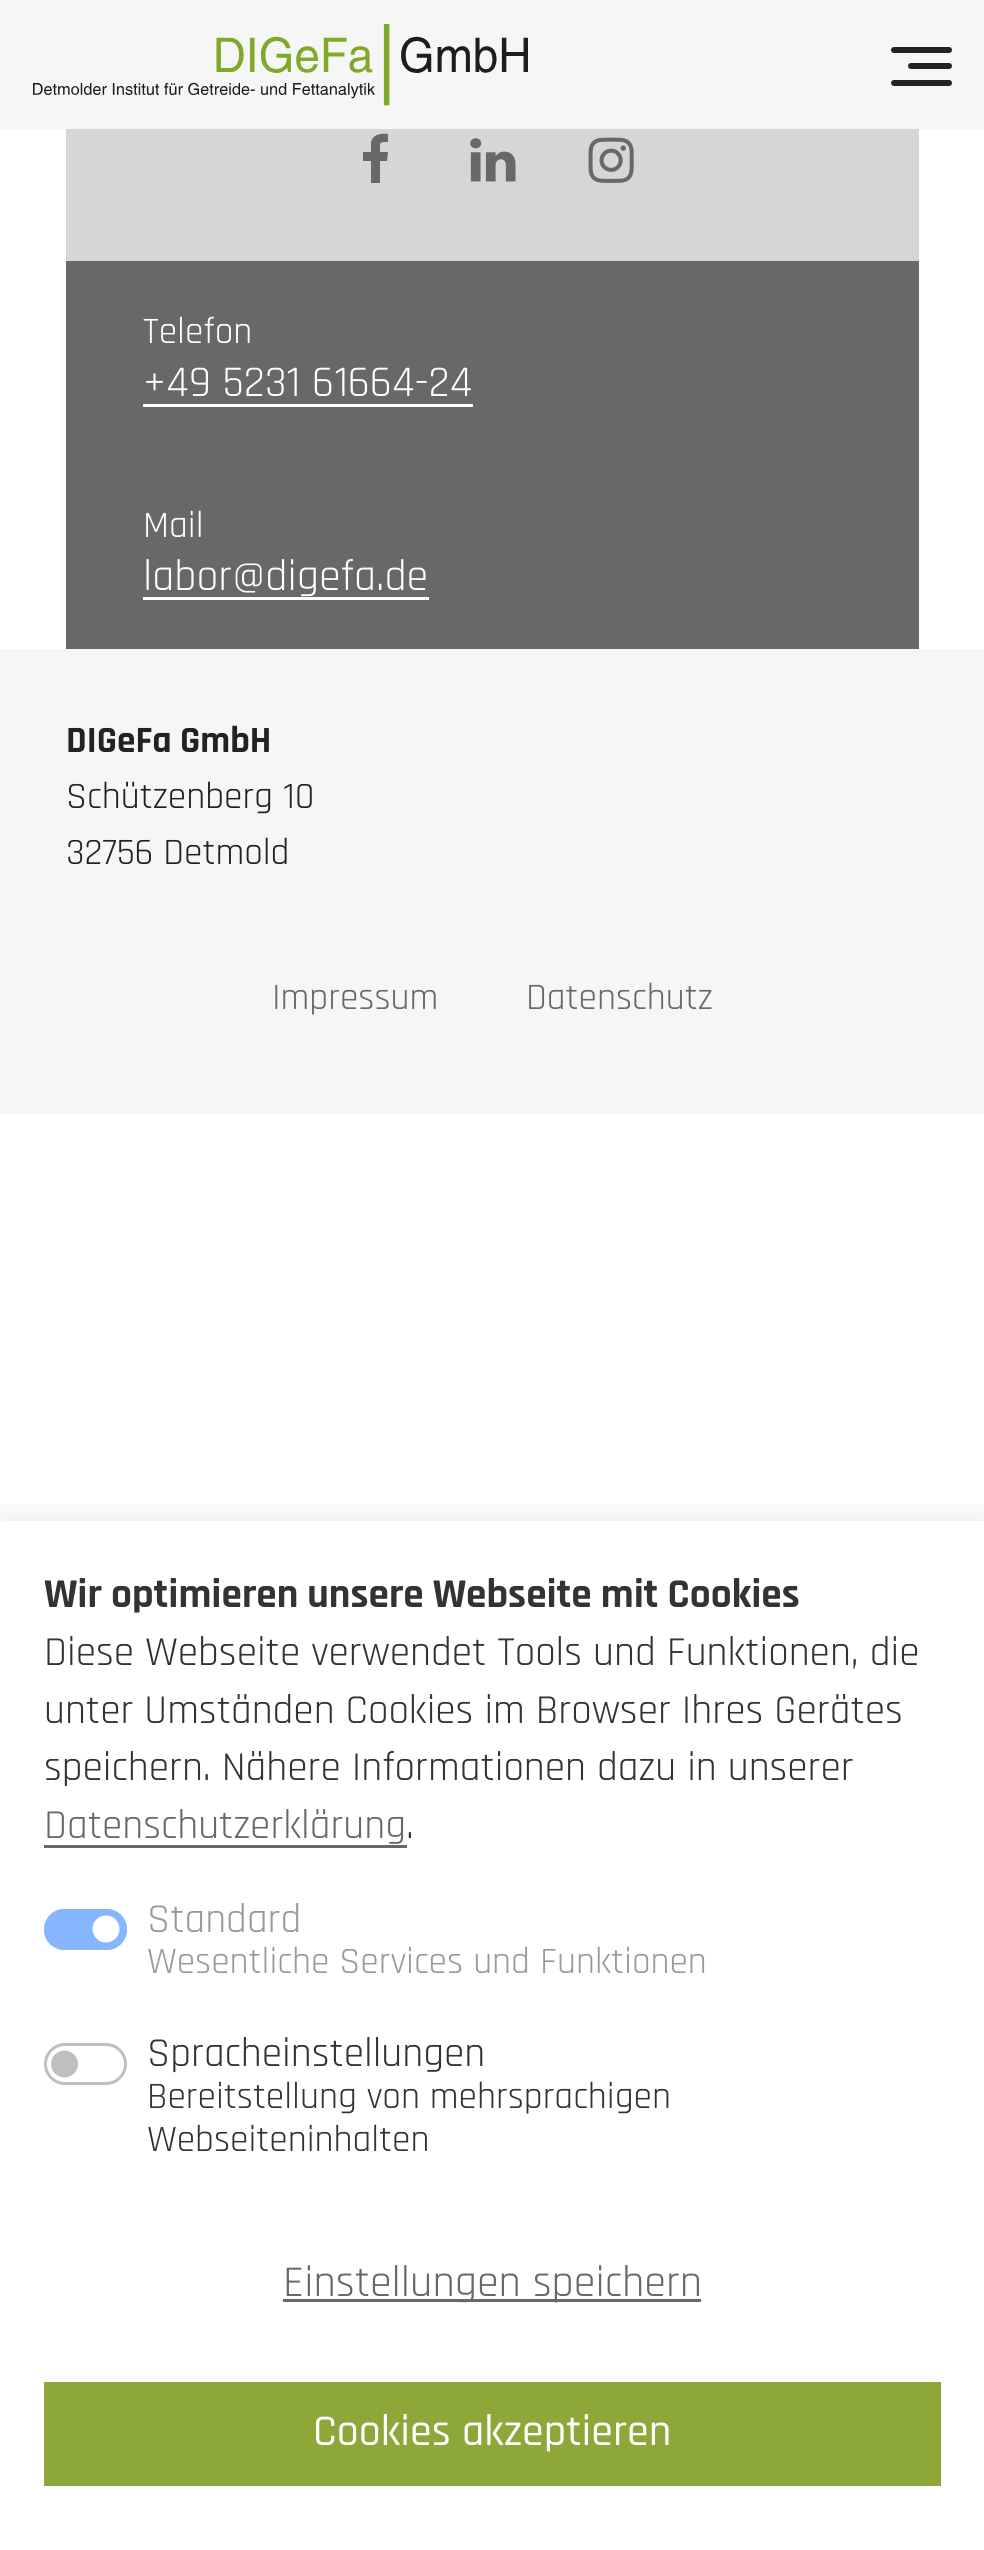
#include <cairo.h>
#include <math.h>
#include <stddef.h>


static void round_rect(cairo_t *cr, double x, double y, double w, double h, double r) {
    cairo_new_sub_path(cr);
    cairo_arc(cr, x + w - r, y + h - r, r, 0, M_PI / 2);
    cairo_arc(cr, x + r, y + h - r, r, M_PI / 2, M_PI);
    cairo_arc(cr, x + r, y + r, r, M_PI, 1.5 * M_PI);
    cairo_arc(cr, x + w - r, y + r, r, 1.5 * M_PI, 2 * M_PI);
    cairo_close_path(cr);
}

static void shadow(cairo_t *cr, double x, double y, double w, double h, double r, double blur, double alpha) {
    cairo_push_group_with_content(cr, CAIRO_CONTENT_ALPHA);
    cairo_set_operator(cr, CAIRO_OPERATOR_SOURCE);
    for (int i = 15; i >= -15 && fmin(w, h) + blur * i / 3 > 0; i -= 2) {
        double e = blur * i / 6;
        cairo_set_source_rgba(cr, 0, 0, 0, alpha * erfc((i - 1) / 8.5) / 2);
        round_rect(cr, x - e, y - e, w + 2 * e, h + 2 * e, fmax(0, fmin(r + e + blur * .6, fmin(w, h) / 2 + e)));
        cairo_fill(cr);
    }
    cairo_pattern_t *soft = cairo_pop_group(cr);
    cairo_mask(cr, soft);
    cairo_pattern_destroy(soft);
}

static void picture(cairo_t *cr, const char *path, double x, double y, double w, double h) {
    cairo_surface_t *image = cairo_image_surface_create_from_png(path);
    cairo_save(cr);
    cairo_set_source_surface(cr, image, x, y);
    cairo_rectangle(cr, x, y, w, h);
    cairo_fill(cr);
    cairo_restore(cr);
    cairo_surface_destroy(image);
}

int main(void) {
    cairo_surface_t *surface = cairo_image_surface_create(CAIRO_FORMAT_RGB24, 984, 2550);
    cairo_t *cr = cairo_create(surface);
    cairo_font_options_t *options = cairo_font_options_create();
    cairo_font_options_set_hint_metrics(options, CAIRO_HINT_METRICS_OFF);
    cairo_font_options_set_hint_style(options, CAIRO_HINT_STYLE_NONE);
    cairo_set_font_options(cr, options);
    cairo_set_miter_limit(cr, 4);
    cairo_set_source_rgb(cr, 1, 1, 1);
    cairo_paint(cr);
    cairo_set_source_rgb(cr, 0.961, 0.961, 0.961);
    cairo_rectangle(cr, 0, 0, 984, 129);
    cairo_fill(cr);
    picture(cr, "img1.png", 33, 24, 495, 82);
    cairo_set_source_rgb(cr, 0.133, 0.133, 0.133);
    round_rect(cr, 891, 47, 61, 6, 3);
    cairo_fill(cr);
    round_rect(cr, 908, 63, 44, 6, 3);
    cairo_fill(cr);
    round_rect(cr, 891, 80, 61, 6, 3);
    cairo_fill(cr);
    cairo_set_source_rgb(cr, 0.839, 0.839, 0.839);
    cairo_rectangle(cr, 66, 129, 853, 132);
    cairo_fill(cr);
    cairo_set_source_rgb(cr, 0.412, 0.404, 0.404);
    cairo_new_path(cr);
    cairo_move_to(cr, 388, 134);
    cairo_line_to(cr, 388, 142);
    cairo_curve_to(cr, 379, 142, 380, 142, 380, 152);
    cairo_line_to(cr, 388, 152);
    cairo_line_to(cr, 387, 161);
    cairo_line_to(cr, 380, 161);
    cairo_line_to(cr, 380, 183);
    cairo_line_to(cr, 371, 183);
    cairo_line_to(cr, 371, 161);
    cairo_line_to(cr, 363, 161);
    cairo_line_to(cr, 363, 152);
    cairo_line_to(cr, 371, 152);
    cairo_line_to(cr, 371, 142);
    cairo_curve_to(cr, 373, 134, 382, 133, 388, 134);
    cairo_close_path(cr);
    cairo_fill(cr);
    picture(cr, "img2.png", 470, 138, 46, 44);
    picture(cr, "img3.png", 588, 137, 46, 46);
    cairo_rectangle(cr, 66, 261, 853, 388);
    cairo_fill(cr);
    cairo_select_font_face(cr, "Rajdhani", CAIRO_FONT_SLANT_NORMAL, CAIRO_FONT_WEIGHT_NORMAL);
    cairo_set_font_size(cr, 37.4);
    cairo_set_source_rgb(cr, 1, 1, 1);
    cairo_move_to(cr, 143, 343);
    cairo_show_text(cr, "Telefon");
    cairo_set_font_size(cr, 44);
    cairo_move_to(cr, 143, 396);
    cairo_show_text(cr, "+49 5231 61664-24");
    cairo_rectangle(cr, 143, 404, 330, 3);
    cairo_fill(cr);
    cairo_set_font_size(cr, 37.4);
    cairo_move_to(cr, 143, 537);
    cairo_show_text(cr, "Mail");
    cairo_set_font_size(cr, 44);
    cairo_move_to(cr, 143, 590);
    cairo_show_text(cr, "labor@digefa.de");
    cairo_rectangle(cr, 143, 597, 286, 3);
    cairo_fill(cr);
    cairo_set_source_rgb(cr, 0.961, 0.961, 0.961);
    cairo_rectangle(cr, 0, 649, 984, 465);
    cairo_fill(cr);
    cairo_select_font_face(cr, "Rajdhani", CAIRO_FONT_SLANT_NORMAL, CAIRO_FONT_WEIGHT_BOLD);
    cairo_set_font_size(cr, 37.4);
    cairo_set_source_rgb(cr, 0.133, 0.133, 0.133);
    cairo_move_to(cr, 66, 752);
    cairo_show_text(cr, "DIGeFa GmbH");
    cairo_select_font_face(cr, "Rajdhani", CAIRO_FONT_SLANT_NORMAL, CAIRO_FONT_WEIGHT_NORMAL);
    cairo_move_to(cr, 66, 808);
    cairo_show_text(cr, "Schützenberg 10");
    cairo_move_to(cr, 66, 864);
    cairo_show_text(cr, "32756 Detmold");
    cairo_set_source_rgb(cr, 0.412, 0.404, 0.404);
    cairo_move_to(cr, 272, 1009);
    cairo_show_text(cr, "Impressum");
    cairo_move_to(cr, 526, 1009);
    cairo_show_text(cr, "Datenschutz");
    cairo_save(cr);
    cairo_rectangle(cr, 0, 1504, 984, 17);
    cairo_clip(cr);
    cairo_set_source_rgb(cr, 0, 0, 0);
    shadow(cr, 0, 1521, 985, 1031, 0, 20.5, 0.1);
    cairo_restore(cr);
    cairo_select_font_face(cr, "Rajdhani", CAIRO_FONT_SLANT_NORMAL, CAIRO_FONT_WEIGHT_BOLD);
    cairo_set_font_size(cr, 41.25);
    cairo_set_source_rgb(cr, 0.2, 0.2, 0.2);
    cairo_move_to(cr, 44, 1607);
    cairo_show_text(cr, "Wir optimieren unsere Webseite mit Cookies");
    cairo_select_font_face(cr, "Rajdhani", CAIRO_FONT_SLANT_NORMAL, CAIRO_FONT_WEIGHT_NORMAL);
    cairo_move_to(cr, 44, 1665);
    cairo_show_text(cr, "Diese Webseite verwendet Tools und Funktionen, die");
    cairo_move_to(cr, 44, 1723);
    cairo_show_text(cr, "unter Umständen Cookies im Browser Ihres Gerätes");
    cairo_move_to(cr, 44, 1780);
    cairo_show_text(cr, "speichern. Nähere Informationen dazu in unserer");
    cairo_set_source_rgb(cr, 0.412, 0.404, 0.404);
    cairo_move_to(cr, 44, 1838);
    cairo_show_text(cr, "Datenschutzerklärung");
    cairo_rectangle(cr, 44, 1845, 363, 3);
    cairo_fill(cr);
    cairo_set_source_rgb(cr, 0.2, 0.2, 0.2);
    cairo_move_to(cr, 406, 1838);
    cairo_show_text(cr, ".");
    cairo_set_source_rgb(cr, 0.525, 0.718, 0.996);
    round_rect(cr, 44, 1909, 83, 41, 20.5);
    cairo_fill(cr);
    cairo_set_source_rgb(cr, 1, 1, 1);
    cairo_arc(cr, 106, 1929, 13.5, 0, 2 * M_PI);
    cairo_fill(cr);
    round_rect(cr, 45.5, 1910.5, 80, 38, 19);
    cairo_set_source_rgb(cr, 0.525, 0.718, 0.996);
    cairo_set_line_width(cr, 3);
    cairo_stroke(cr);
    cairo_set_source_rgb(cr, 0.6, 0.6, 0.6);
    cairo_move_to(cr, 147, 1932);
    cairo_show_text(cr, "Standard");
    cairo_set_font_size(cr, 37.4);
    cairo_move_to(cr, 147, 1973);
    cairo_show_text(cr, "Wesentliche Services und Funktionen");
    cairo_set_source_rgb(cr, 0.749, 0.749, 0.749);
    cairo_new_path(cr);
    cairo_arc(cr, 64.5, 2064, 13.5, 0, 2 * M_PI);
    cairo_fill(cr);
    round_rect(cr, 45.5, 2044.5, 80, 39, 19.5);
    cairo_stroke(cr);
    cairo_set_font_size(cr, 41.25);
    cairo_set_source_rgb(cr, 0.2, 0.2, 0.2);
    cairo_move_to(cr, 147, 2066);
    cairo_show_text(cr, "Spracheinstellungen");
    cairo_set_font_size(cr, 37.4);
    cairo_move_to(cr, 147, 2108);
    cairo_show_text(cr, "Bereitstellung von mehrsprachigen");
    cairo_move_to(cr, 147, 2151);
    cairo_show_text(cr, "Webseiteninhalten");
    cairo_set_source_rgb(cr, 0.412, 0.404, 0.404);
    cairo_rectangle(cr, 283, 2299, 418, 3);
    cairo_fill(cr);
    cairo_set_font_size(cr, 44);
    cairo_move_to(cr, 283, 2296);
    cairo_show_text(cr, "Einstellungen speichern");
    cairo_set_source_rgb(cr, 0.553, 0.655, 0.224);
    cairo_rectangle(cr, 44, 2382, 897, 104);
    cairo_fill(cr);
    cairo_select_font_face(cr, "Rajdhani Medium", CAIRO_FONT_SLANT_NORMAL, CAIRO_FONT_WEIGHT_NORMAL);
    cairo_set_source_rgb(cr, 1, 1, 1);
    cairo_move_to(cr, 313, 2445);
    cairo_show_text(cr, "Cookies akzeptieren");
    cairo_surface_write_to_png(surface, "page.png");
    cairo_font_options_destroy(options);
    cairo_destroy(cr);
    cairo_surface_destroy(surface);
    return 0;
}
